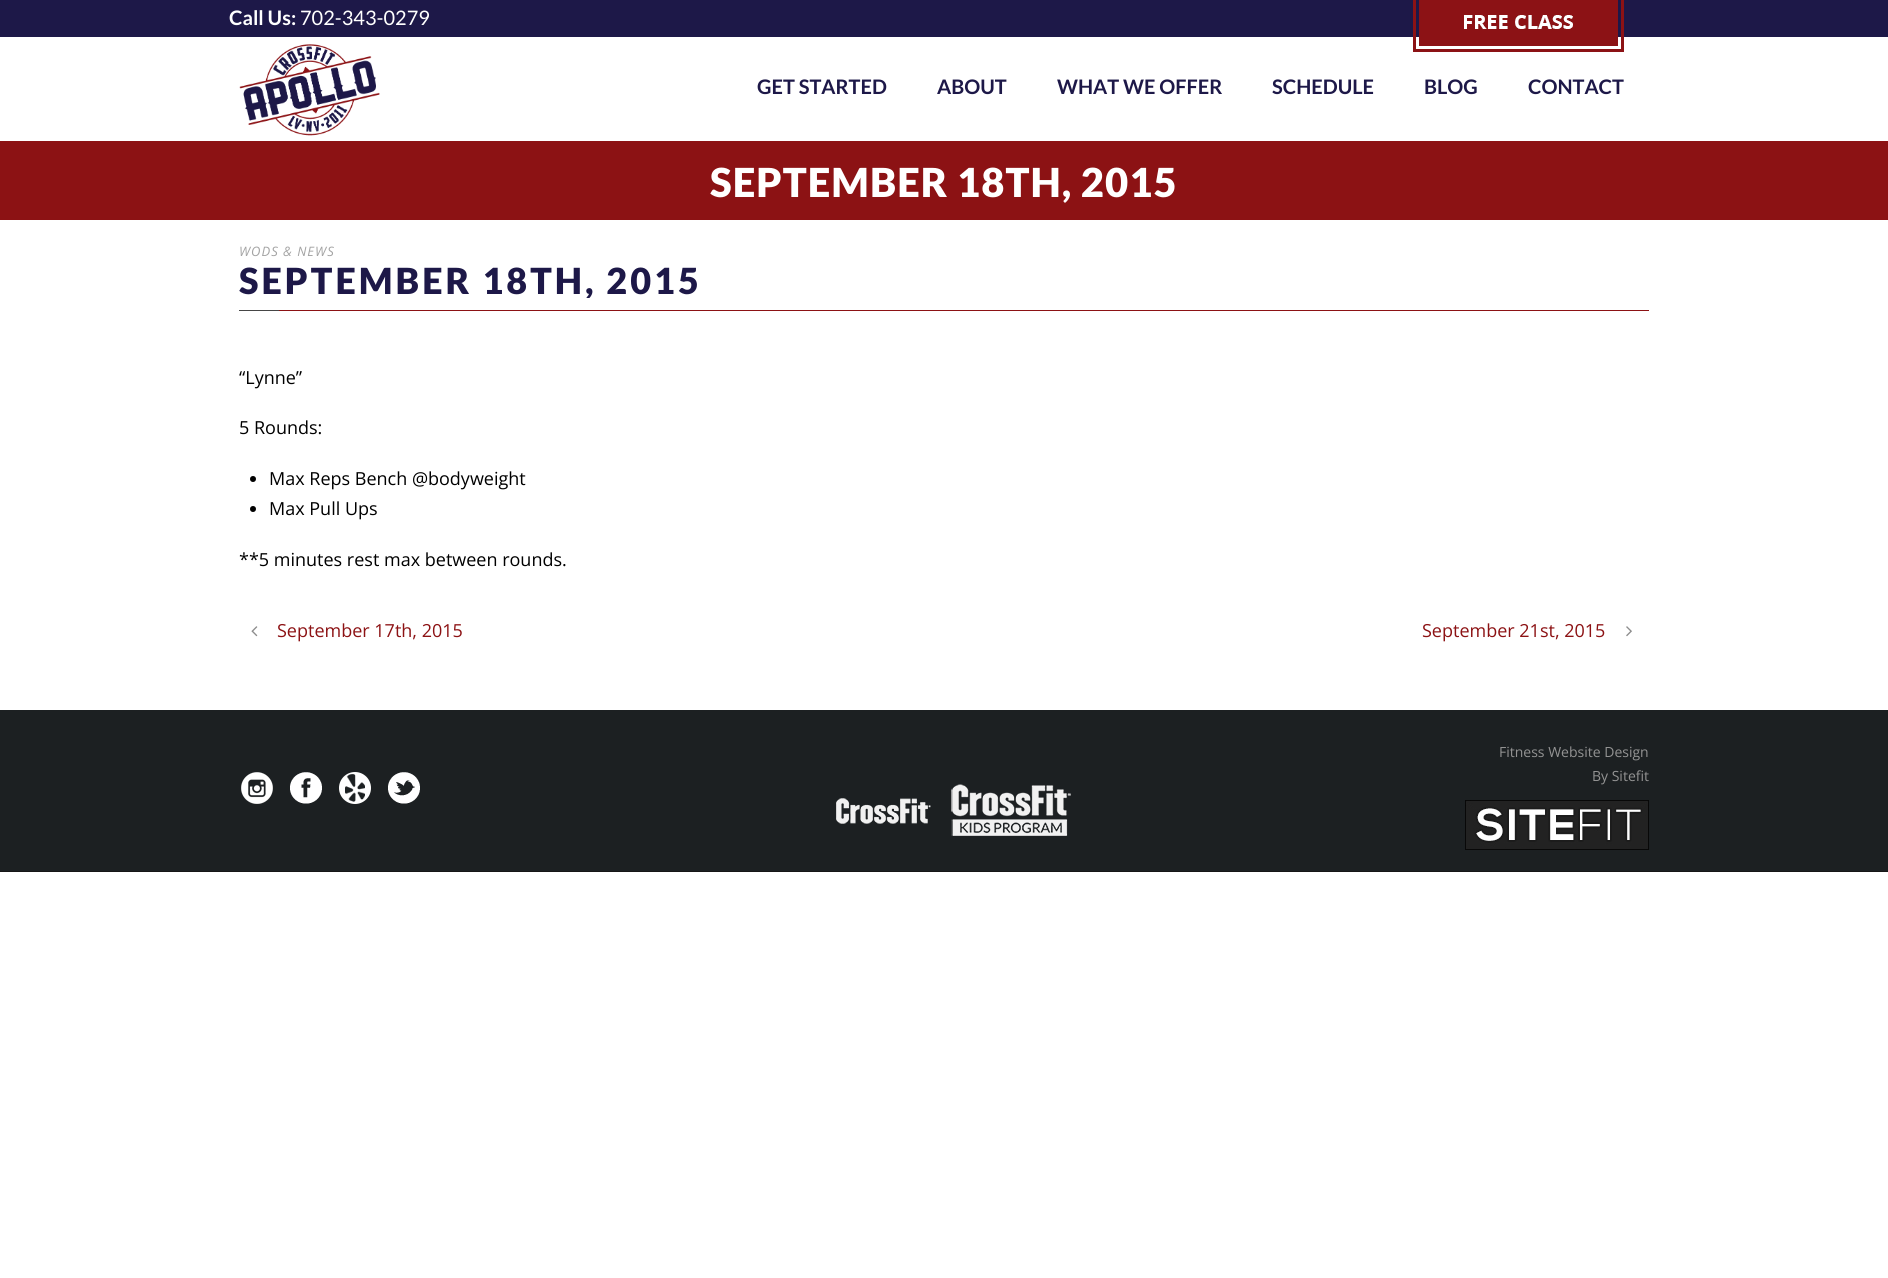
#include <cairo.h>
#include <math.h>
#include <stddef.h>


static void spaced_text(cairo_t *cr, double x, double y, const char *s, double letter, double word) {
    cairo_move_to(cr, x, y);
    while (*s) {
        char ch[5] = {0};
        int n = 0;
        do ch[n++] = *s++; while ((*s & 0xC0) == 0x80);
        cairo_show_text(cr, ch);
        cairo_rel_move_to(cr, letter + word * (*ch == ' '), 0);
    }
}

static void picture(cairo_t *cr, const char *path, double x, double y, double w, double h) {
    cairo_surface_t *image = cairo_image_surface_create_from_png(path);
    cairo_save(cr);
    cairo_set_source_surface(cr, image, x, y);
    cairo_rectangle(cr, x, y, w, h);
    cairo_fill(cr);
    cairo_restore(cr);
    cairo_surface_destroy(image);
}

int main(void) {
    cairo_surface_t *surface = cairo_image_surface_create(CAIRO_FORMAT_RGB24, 1888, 1278);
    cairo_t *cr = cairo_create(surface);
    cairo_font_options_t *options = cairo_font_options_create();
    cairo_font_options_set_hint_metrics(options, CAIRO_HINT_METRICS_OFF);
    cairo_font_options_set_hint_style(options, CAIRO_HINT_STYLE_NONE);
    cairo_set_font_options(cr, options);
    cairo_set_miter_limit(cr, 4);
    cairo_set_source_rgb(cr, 1, 1, 1);
    cairo_paint(cr);
    cairo_set_source_rgb(cr, 0.114, 0.094, 0.282);
    cairo_rectangle(cr, 0, 0, 1888, 37);
    cairo_fill(cr);
    cairo_select_font_face(cr, "Lato", CAIRO_FONT_SLANT_NORMAL, CAIRO_FONT_WEIGHT_BOLD);
    cairo_set_font_size(cr, 20);
    cairo_set_source_rgb(cr, 1, 1, 1);
    cairo_move_to(cr, 229, 25);
    cairo_show_text(cr, "Call Us:");
    cairo_select_font_face(cr, "Lato", CAIRO_FONT_SLANT_NORMAL, CAIRO_FONT_WEIGHT_NORMAL);
    cairo_move_to(cr, 300, 25);
    cairo_show_text(cr, "702-343-0279");
    picture(cr, "img1.png", 1413, 0, 211, 52);
    picture(cr, "img2.png", 239, 44, 141, 92);
    cairo_select_font_face(cr, "Lato", CAIRO_FONT_SLANT_NORMAL, CAIRO_FONT_WEIGHT_BOLD);
    cairo_set_source_rgb(cr, 0.114, 0.094, 0.282);
    cairo_move_to(cr, 757, 94);
    cairo_show_text(cr, "GET STARTED");
    cairo_move_to(cr, 937, 94);
    cairo_show_text(cr, "ABOUT");
    cairo_move_to(cr, 1057, 94);
    cairo_show_text(cr, "WHAT WE OFFER");
    cairo_move_to(cr, 1272, 94);
    cairo_show_text(cr, "SCHEDULE");
    cairo_move_to(cr, 1424, 94);
    cairo_show_text(cr, "BLOG");
    cairo_move_to(cr, 1528, 94);
    cairo_show_text(cr, "CONTACT");
    cairo_set_source_rgb(cr, 0.549, 0.071, 0.082);
    cairo_rectangle(cr, 0, 141, 1888, 79);
    cairo_fill(cr);
    cairo_select_font_face(cr, "Lato Black", CAIRO_FONT_SLANT_NORMAL, CAIRO_FONT_WEIGHT_NORMAL);
    cairo_set_font_size(cr, 40);
    cairo_set_source_rgb(cr, 1, 1, 1);
    spaced_text(cr, 710, 197, "SEPTEMBER 18TH, 2015", 1, 0);
    cairo_set_source_rgb(cr, 0.549, 0.071, 0.082);
    cairo_rectangle(cr, 279, 310, 1370, 1);
    cairo_fill(cr);
    cairo_select_font_face(cr, "Open Sans", CAIRO_FONT_SLANT_ITALIC, CAIRO_FONT_WEIGHT_NORMAL);
    cairo_set_font_size(cr, 13);
    cairo_set_source_rgb(cr, 0.639, 0.639, 0.639);
    spaced_text(cr, 239, 256, "WODS & NEWS", 1, 0);
    cairo_save(cr);
    cairo_rectangle(cr, 239, 240, 1410, 58);
    cairo_clip(cr);
    cairo_select_font_face(cr, "Lato Black", CAIRO_FONT_SLANT_NORMAL, CAIRO_FONT_WEIGHT_NORMAL);
    cairo_set_font_size(cr, 36);
    cairo_set_source_rgb(cr, 0.114, 0.094, 0.282);
    spaced_text(cr, 239, 294, "SEPTEMBER 18TH, 2015", 3, 0);
    cairo_restore(cr);
    cairo_set_source_rgb(cr, 0.275, 0.275, 0.275);
    cairo_rectangle(cr, 239, 310, 40, 1);
    cairo_fill(cr);
    cairo_select_font_face(cr, "Open Sans", CAIRO_FONT_SLANT_NORMAL, CAIRO_FONT_WEIGHT_NORMAL);
    cairo_set_font_size(cr, 18);
    cairo_set_source_rgb(cr, 0, 0, 0);
    cairo_move_to(cr, 239, 384);
    cairo_show_text(cr, "“Lynne”");
    cairo_move_to(cr, 239, 434);
    cairo_show_text(cr, "5 Rounds:");
    cairo_new_path(cr);
    cairo_arc(cr, 253, 479, 3, 0, 2 * M_PI);
    cairo_fill(cr);
    cairo_move_to(cr, 269, 485);
    cairo_show_text(cr, "Max Reps Bench @bodyweight");
    cairo_new_path(cr);
    cairo_arc(cr, 253, 509, 3, 0, 2 * M_PI);
    cairo_fill(cr);
    cairo_move_to(cr, 269, 515);
    cairo_show_text(cr, "Max Pull Ups");
    cairo_move_to(cr, 239, 566);
    cairo_show_text(cr, "**5 minutes rest max between rounds.");
    picture(cr, "img3.png", 251, 626, 7, 11);
    cairo_set_source_rgb(cr, 0.549, 0.071, 0.082);
    cairo_move_to(cr, 277, 637);
    cairo_show_text(cr, "September 17th, 2015");
    cairo_move_to(cr, 1422, 637);
    cairo_show_text(cr, "September 21st, 2015");
    picture(cr, "img4.png", 1626, 626, 6, 11);
    cairo_set_source_rgb(cr, 0.11, 0.125, 0.133);
    cairo_rectangle(cr, 0, 710, 1888, 161);
    cairo_fill(cr);
    picture(cr, "img5.png", 241, 772, 32, 32);
    picture(cr, "img6.png", 290, 772, 32, 32);
    picture(cr, "img7.png", 339, 772, 32, 32);
    picture(cr, "img8.png", 388, 772, 32, 32);
    picture(cr, "img9.png", 836, 798, 95, 26);
    picture(cr, "img10.png", 951, 784, 120, 52);
    cairo_set_font_size(cr, 14);
    cairo_set_source_rgb(cr, 0.576, 0.576, 0.576);
    cairo_move_to(cr, 1499, 757);
    cairo_show_text(cr, "Fitness Website Design");
    cairo_move_to(cr, 1592, 781);
    cairo_show_text(cr, "By Sitefit");
    picture(cr, "img11.png", 1465, 800, 184, 50);
    cairo_set_source_rgb(cr, 0.086, 0.086, 0.086);
    cairo_rectangle(cr, 0, 871, 1888, 1);
    cairo_fill(cr);
    cairo_surface_write_to_png(surface, "page.png");
    cairo_font_options_destroy(options);
    cairo_destroy(cr);
    cairo_surface_destroy(surface);
    return 0;
}
